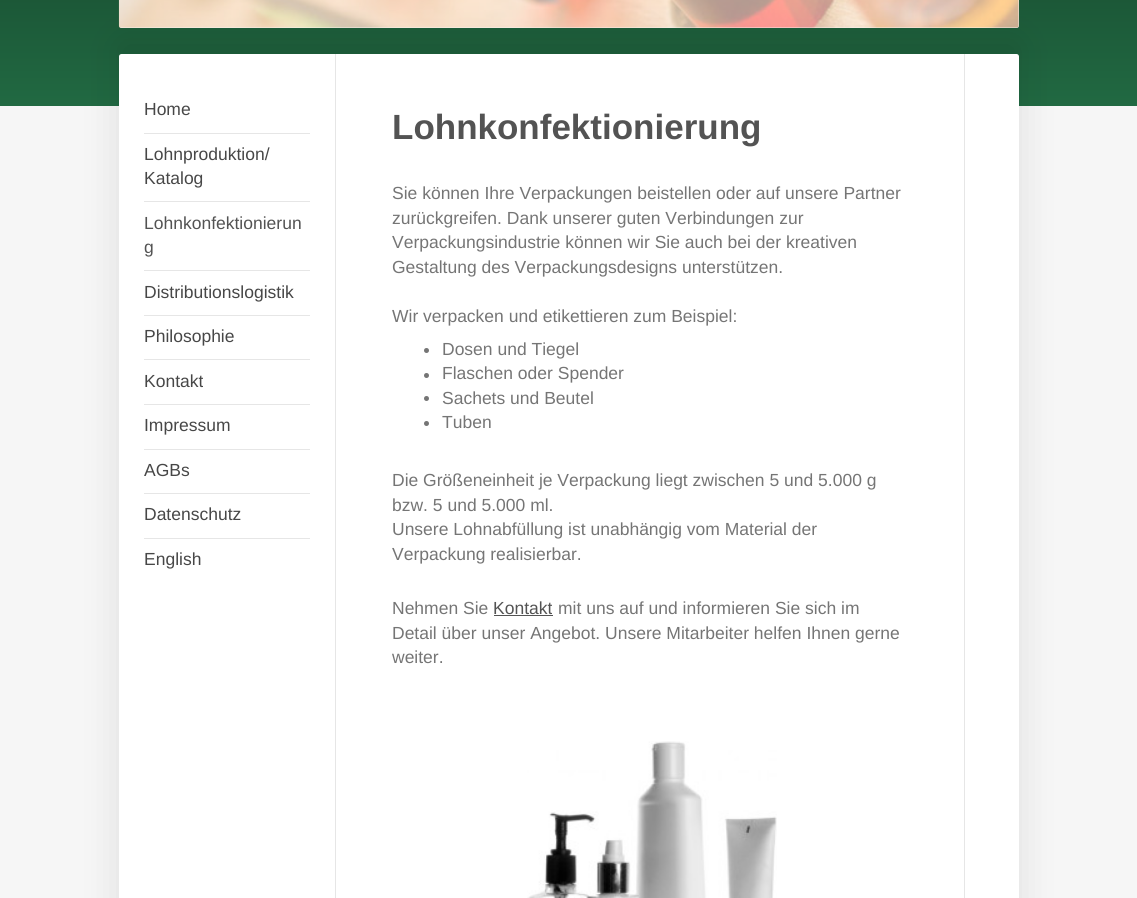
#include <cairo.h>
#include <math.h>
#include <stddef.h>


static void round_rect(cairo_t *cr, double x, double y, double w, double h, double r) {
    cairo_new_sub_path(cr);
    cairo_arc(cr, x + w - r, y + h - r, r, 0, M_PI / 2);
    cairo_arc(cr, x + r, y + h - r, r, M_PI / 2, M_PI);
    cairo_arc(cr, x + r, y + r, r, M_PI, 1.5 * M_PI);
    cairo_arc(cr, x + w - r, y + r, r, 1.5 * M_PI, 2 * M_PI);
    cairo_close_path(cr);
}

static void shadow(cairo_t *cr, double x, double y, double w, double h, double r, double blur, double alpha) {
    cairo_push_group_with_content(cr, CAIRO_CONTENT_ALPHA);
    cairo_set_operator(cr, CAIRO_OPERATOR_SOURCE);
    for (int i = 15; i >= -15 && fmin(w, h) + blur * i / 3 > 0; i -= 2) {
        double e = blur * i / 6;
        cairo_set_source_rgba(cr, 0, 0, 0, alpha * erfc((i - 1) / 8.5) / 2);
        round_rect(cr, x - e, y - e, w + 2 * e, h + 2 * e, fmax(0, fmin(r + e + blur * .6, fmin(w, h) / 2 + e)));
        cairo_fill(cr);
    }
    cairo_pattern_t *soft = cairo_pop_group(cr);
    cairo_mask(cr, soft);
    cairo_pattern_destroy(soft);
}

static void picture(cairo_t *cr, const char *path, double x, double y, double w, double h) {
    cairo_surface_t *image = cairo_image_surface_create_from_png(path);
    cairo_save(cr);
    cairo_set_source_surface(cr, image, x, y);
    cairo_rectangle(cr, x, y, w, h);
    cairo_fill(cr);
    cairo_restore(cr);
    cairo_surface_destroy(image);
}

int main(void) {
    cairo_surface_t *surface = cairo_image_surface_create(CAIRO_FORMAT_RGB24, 1137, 898);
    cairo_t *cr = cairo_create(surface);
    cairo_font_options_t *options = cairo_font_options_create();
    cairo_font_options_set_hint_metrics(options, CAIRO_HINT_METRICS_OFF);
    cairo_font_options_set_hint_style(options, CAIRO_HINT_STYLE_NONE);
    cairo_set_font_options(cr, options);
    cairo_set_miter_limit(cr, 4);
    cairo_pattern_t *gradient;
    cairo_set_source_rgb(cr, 0.961, 0.961, 0.961);
    cairo_paint(cr);
    gradient = cairo_pattern_create_linear(0, 106, 0, -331);
    cairo_pattern_add_color_stop_rgba(gradient, 0, 0.129, 0.412, 0.259, 1);
    cairo_pattern_add_color_stop_rgba(gradient, 1, 0.043, 0.137, 0.086, 1);
    cairo_set_source(cr, gradient);
    cairo_pattern_destroy(gradient);
    cairo_rectangle(cr, 0, 0, 1137, 106);
    cairo_fill(cr);
    cairo_set_source_rgb(cr, 0.933, 0.933, 0.933);
    round_rect(cr, 119, -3, 900, 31, 2.5);
    cairo_fill(cr);
    picture(cr, "img1.png", 118, 0, 901, 28);
    cairo_set_source_rgb(cr, 0, 0, 0);
    shadow(cr, 119, 41, 900, 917, 2.5, 19, 0.1);
    cairo_set_source_rgba(cr, 1, 1, 1, 0.57);
    round_rect(cr, 119, -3, 900, 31, 2.5);
    cairo_fill(cr);
    cairo_set_source_rgb(cr, 1, 1, 1);
    round_rect(cr, 119, 54, 900, 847, 2.5);
    cairo_fill(cr);
    cairo_set_source_rgb(cr, 0.902, 0.902, 0.902);
    cairo_rectangle(cr, 144, 133, 166, 1);
    cairo_fill(cr);
    cairo_select_font_face(cr, "Liberation Sans", CAIRO_FONT_SLANT_NORMAL, CAIRO_FONT_WEIGHT_NORMAL);
    cairo_set_font_size(cr, 17.5);
    cairo_set_source_rgb(cr, 0.278, 0.278, 0.278);
    cairo_move_to(cr, 144, 115);
    cairo_show_text(cr, "Home");
    cairo_set_source_rgb(cr, 0.902, 0.902, 0.902);
    cairo_rectangle(cr, 144, 201, 166, 1);
    cairo_fill(cr);
    cairo_set_source_rgb(cr, 0.278, 0.278, 0.278);
    cairo_move_to(cr, 144, 160);
    cairo_show_text(cr, "Lohnproduktion/");
    cairo_move_to(cr, 144, 184);
    cairo_show_text(cr, "Katalog");
    cairo_set_source_rgb(cr, 0.902, 0.902, 0.902);
    cairo_rectangle(cr, 144, 270, 166, 1);
    cairo_fill(cr);
    cairo_set_source_rgb(cr, 0.325, 0.325, 0.325);
    cairo_move_to(cr, 144, 229);
    cairo_show_text(cr, "Lohnkonfektionierun");
    cairo_move_to(cr, 144, 253);
    cairo_show_text(cr, "g");
    cairo_set_source_rgb(cr, 0.902, 0.902, 0.902);
    cairo_rectangle(cr, 144, 315, 166, 1);
    cairo_fill(cr);
    cairo_set_source_rgb(cr, 0.278, 0.278, 0.278);
    cairo_move_to(cr, 144, 298);
    cairo_show_text(cr, "Distributionslogistik");
    cairo_set_source_rgb(cr, 0.902, 0.902, 0.902);
    cairo_rectangle(cr, 144, 359, 166, 1);
    cairo_fill(cr);
    cairo_set_source_rgb(cr, 0.278, 0.278, 0.278);
    cairo_move_to(cr, 144, 342);
    cairo_show_text(cr, "Philosophie");
    cairo_set_source_rgb(cr, 0.902, 0.902, 0.902);
    cairo_rectangle(cr, 144, 404, 166, 1);
    cairo_fill(cr);
    cairo_set_source_rgb(cr, 0.278, 0.278, 0.278);
    cairo_move_to(cr, 144, 387);
    cairo_show_text(cr, "Kontakt");
    cairo_set_source_rgb(cr, 0.902, 0.902, 0.902);
    cairo_rectangle(cr, 144, 449, 166, 1);
    cairo_fill(cr);
    cairo_set_source_rgb(cr, 0.278, 0.278, 0.278);
    cairo_move_to(cr, 144, 431);
    cairo_show_text(cr, "Impressum");
    cairo_set_source_rgb(cr, 0.902, 0.902, 0.902);
    cairo_rectangle(cr, 144, 493, 166, 1);
    cairo_fill(cr);
    cairo_set_source_rgb(cr, 0.278, 0.278, 0.278);
    cairo_move_to(cr, 144, 476);
    cairo_show_text(cr, "AGBs");
    cairo_set_source_rgb(cr, 0.902, 0.902, 0.902);
    cairo_rectangle(cr, 144, 538, 166, 1);
    cairo_fill(cr);
    cairo_set_source_rgb(cr, 0.278, 0.278, 0.278);
    cairo_move_to(cr, 144, 520);
    cairo_show_text(cr, "Datenschutz");
    cairo_move_to(cr, 144, 565);
    cairo_show_text(cr, "English");
    cairo_set_source_rgb(cr, 0.902, 0.902, 0.902);
    cairo_rectangle(cr, 964, 54, 1, 844);
    cairo_fill(cr);
    cairo_rectangle(cr, 335, 54, 1, 844);
    cairo_fill(cr);
    cairo_select_font_face(cr, "Liberation Sans", CAIRO_FONT_SLANT_NORMAL, CAIRO_FONT_WEIGHT_BOLD);
    cairo_set_font_size(cr, 35);
    cairo_set_source_rgb(cr, 0.325, 0.325, 0.325);
    cairo_move_to(cr, 392, 139);
    cairo_show_text(cr, "Lohnkonfektionierung");
    cairo_select_font_face(cr, "Liberation Sans", CAIRO_FONT_SLANT_NORMAL, CAIRO_FONT_WEIGHT_NORMAL);
    cairo_set_font_size(cr, 17.5);
    cairo_set_source_rgb(cr, 0.459, 0.459, 0.459);
    cairo_move_to(cr, 392, 199);
    cairo_show_text(cr, "Sie können Ihre Verpackungen beistellen oder auf unsere Partner");
    cairo_move_to(cr, 392, 224);
    cairo_show_text(cr, "zurückgreifen. Dank unserer guten Verbindungen zur");
    cairo_move_to(cr, 392, 248);
    cairo_show_text(cr, "Verpackungsindustrie können wir Sie auch bei der kreativen");
    cairo_move_to(cr, 392, 273);
    cairo_show_text(cr, "Gestaltung des Verpackungsdesigns unterstützen.");
    cairo_move_to(cr, 392, 322);
    cairo_show_text(cr, "Wir verpacken und etikettieren zum Beispiel:");
    cairo_new_path(cr);
    cairo_arc(cr, 426.5, 350.5, 2.5, 0, 2 * M_PI);
    cairo_fill(cr);
    cairo_move_to(cr, 442, 355);
    cairo_show_text(cr, "Dosen und Tiegel");
    cairo_new_path(cr);
    cairo_arc(cr, 426.5, 375.5, 2.5, 0, 2 * M_PI);
    cairo_fill(cr);
    cairo_move_to(cr, 442, 379);
    cairo_show_text(cr, "Flaschen oder Spender");
    cairo_new_path(cr);
    cairo_arc(cr, 426.5, 398.5, 2.5, 0, 2 * M_PI);
    cairo_fill(cr);
    cairo_move_to(cr, 442, 404);
    cairo_show_text(cr, "Sachets und Beutel");
    cairo_new_path(cr);
    cairo_arc(cr, 426.5, 423.5, 2.5, 0, 2 * M_PI);
    cairo_fill(cr);
    cairo_move_to(cr, 442, 428);
    cairo_show_text(cr, "Tuben");
    cairo_move_to(cr, 392, 486);
    cairo_show_text(cr, "Die Größeneinheit je Verpackung liegt zwischen 5 und 5.000 g");
    cairo_move_to(cr, 392, 511);
    cairo_show_text(cr, "bzw. 5 und 5.000 ml.");
    cairo_move_to(cr, 392, 535);
    cairo_show_text(cr, "Unsere Lohnabfüllung ist unabhängig vom Material der");
    cairo_move_to(cr, 392, 560);
    cairo_show_text(cr, "Verpackung realisierbar.");
    cairo_move_to(cr, 392, 614);
    cairo_show_text(cr, "Nehmen Sie");
    cairo_set_source_rgb(cr, 0.325, 0.325, 0.325);
    cairo_move_to(cr, 493, 614);
    cairo_show_text(cr, "Kontakt");
    cairo_rectangle(cr, 494, 615, 59, 1);
    cairo_fill(cr);
    cairo_set_source_rgb(cr, 0.459, 0.459, 0.459);
    cairo_move_to(cr, 558, 614);
    cairo_show_text(cr, "mit uns auf und informieren Sie sich im");
    cairo_move_to(cr, 392, 639);
    cairo_show_text(cr, "Detail über unser Angebot. Unsere Mitarbeiter helfen Ihnen gerne");
    cairo_move_to(cr, 392, 663);
    cairo_show_text(cr, "weiter.");
    picture(cr, "img2.png", 527, 741, 250, 157);
    cairo_surface_write_to_png(surface, "page.png");
    cairo_font_options_destroy(options);
    cairo_destroy(cr);
    cairo_surface_destroy(surface);
    return 0;
}
